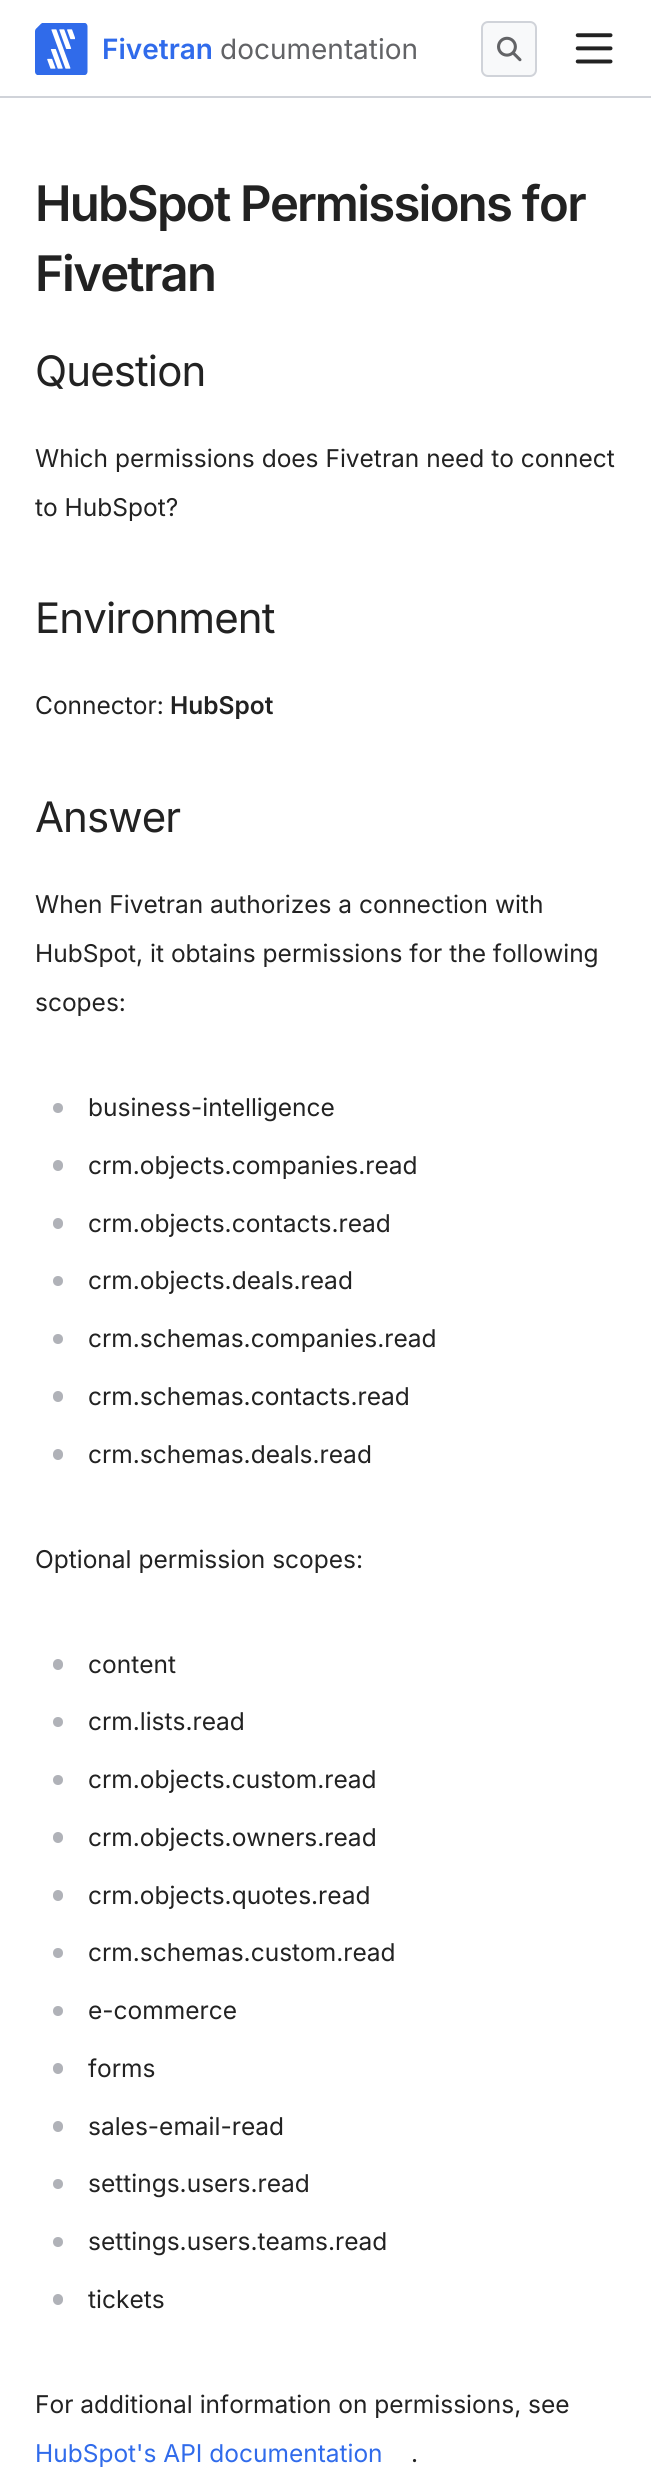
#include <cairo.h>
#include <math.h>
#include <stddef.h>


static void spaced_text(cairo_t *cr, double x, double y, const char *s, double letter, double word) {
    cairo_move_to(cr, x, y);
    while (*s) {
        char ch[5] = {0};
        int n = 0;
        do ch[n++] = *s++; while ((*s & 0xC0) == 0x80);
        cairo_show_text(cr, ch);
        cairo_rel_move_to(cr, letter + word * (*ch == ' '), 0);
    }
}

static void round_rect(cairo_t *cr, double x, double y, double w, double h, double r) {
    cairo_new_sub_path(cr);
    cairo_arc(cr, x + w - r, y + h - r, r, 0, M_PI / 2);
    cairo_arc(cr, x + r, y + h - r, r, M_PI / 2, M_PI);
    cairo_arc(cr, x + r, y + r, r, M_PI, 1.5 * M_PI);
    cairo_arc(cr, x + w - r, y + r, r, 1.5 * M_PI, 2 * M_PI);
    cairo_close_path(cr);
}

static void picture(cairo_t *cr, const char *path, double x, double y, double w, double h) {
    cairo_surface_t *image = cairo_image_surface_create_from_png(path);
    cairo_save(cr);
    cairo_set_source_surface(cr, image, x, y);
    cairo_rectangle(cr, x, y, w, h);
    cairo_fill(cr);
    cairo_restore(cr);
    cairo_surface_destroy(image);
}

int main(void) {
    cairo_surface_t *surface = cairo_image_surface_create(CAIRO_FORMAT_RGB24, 651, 2485);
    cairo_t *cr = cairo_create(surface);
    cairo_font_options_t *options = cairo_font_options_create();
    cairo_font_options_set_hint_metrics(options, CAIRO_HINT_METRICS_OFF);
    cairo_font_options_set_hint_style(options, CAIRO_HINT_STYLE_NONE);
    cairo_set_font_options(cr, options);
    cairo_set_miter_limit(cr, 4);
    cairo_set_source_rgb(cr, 1, 1, 1);
    cairo_paint(cr);
    cairo_set_source_rgb(cr, 0.816, 0.827, 0.851);
    cairo_rectangle(cr, 0, 96, 651, 2);
    cairo_fill(cr);
    picture(cr, "img1.png", 35, 23, 53, 52);
    cairo_select_font_face(cr, "Inter SemiBold", CAIRO_FONT_SLANT_NORMAL, CAIRO_FONT_WEIGHT_NORMAL);
    cairo_set_font_size(cr, 28);
    cairo_set_source_rgb(cr, 0.188, 0.42, 0.918);
    cairo_move_to(cr, 102, 59);
    cairo_show_text(cr, "Fivetran");
    cairo_select_font_face(cr, "Inter", CAIRO_FONT_SLANT_NORMAL, CAIRO_FONT_WEIGHT_NORMAL);
    cairo_set_source_rgb(cr, 0.384, 0.388, 0.4);
    cairo_move_to(cr, 220, 59);
    cairo_show_text(cr, "documentation");
    cairo_set_source_rgb(cr, 0.969, 0.973, 0.98);
    round_rect(cr, 482, 22, 54, 54, 6);
    cairo_fill_preserve(cr);
    cairo_set_source_rgb(cr, 0.816, 0.827, 0.851);
    cairo_stroke(cr);
    picture(cr, "img2.png", 497, 36, 25, 26);
    picture(cr, "img3.png", 575, 33, 38, 31);
    cairo_select_font_face(cr, "Inter SemiBold", CAIRO_FONT_SLANT_NORMAL, CAIRO_FONT_WEIGHT_NORMAL);
    cairo_set_font_size(cr, 49);
    cairo_set_source_rgb(cr, 0.133, 0.133, 0.133);
    spaced_text(cr, 35, 221, "HubSpot Permissions for", -1.75, 0);
    spaced_text(cr, 35, 291, "Fivetran", -1.75, 0);
    cairo_select_font_face(cr, "Inter", CAIRO_FONT_SLANT_NORMAL, CAIRO_FONT_WEIGHT_NORMAL);
    cairo_set_font_size(cr, 42);
    spaced_text(cr, 35, 386, "Question", -0.9, 0);
    cairo_set_font_size(cr, 24.5);
    cairo_move_to(cr, 35, 467);
    cairo_show_text(cr, "Which permissions does Fivetran need to connect");
    cairo_move_to(cr, 35, 516);
    cairo_show_text(cr, "to HubSpot?");
    cairo_set_font_size(cr, 42);
    spaced_text(cr, 35, 633, "Environment", -0.9, 0);
    cairo_set_font_size(cr, 24.5);
    cairo_move_to(cr, 35, 714);
    cairo_show_text(cr, "Connector:");
    cairo_select_font_face(cr, "Inter SemiBold", CAIRO_FONT_SLANT_NORMAL, CAIRO_FONT_WEIGHT_NORMAL);
    cairo_move_to(cr, 170, 714);
    cairo_show_text(cr, "HubSpot");
    cairo_select_font_face(cr, "Inter", CAIRO_FONT_SLANT_NORMAL, CAIRO_FONT_WEIGHT_NORMAL);
    cairo_set_font_size(cr, 42);
    spaced_text(cr, 35, 832, "Answer", -0.9, 0);
    cairo_set_font_size(cr, 24.5);
    cairo_move_to(cr, 35, 913);
    cairo_show_text(cr, "When Fivetran authorizes a connection with");
    cairo_move_to(cr, 35, 962);
    cairo_show_text(cr, "HubSpot, it obtains permissions for the following");
    cairo_move_to(cr, 35, 1011);
    cairo_show_text(cr, "scopes:");
    cairo_set_source_rgb(cr, 0.69, 0.698, 0.722);
    cairo_new_path(cr);
    cairo_arc(cr, 58, 1108, 5, 0, 2 * M_PI);
    cairo_fill(cr);
    cairo_set_source_rgb(cr, 0.133, 0.133, 0.133);
    cairo_move_to(cr, 88, 1116);
    cairo_show_text(cr, "business-intelligence");
    cairo_set_source_rgb(cr, 0.69, 0.698, 0.722);
    round_rect(cr, 53, 1160, 10, 11, 5);
    cairo_fill(cr);
    cairo_set_source_rgb(cr, 0.133, 0.133, 0.133);
    cairo_move_to(cr, 88, 1174);
    cairo_show_text(cr, "crm.objects.companies.read");
    cairo_set_source_rgb(cr, 0.69, 0.698, 0.722);
    round_rect(cr, 53, 1218, 10, 11, 5);
    cairo_fill(cr);
    cairo_set_source_rgb(cr, 0.133, 0.133, 0.133);
    cairo_move_to(cr, 88, 1232);
    cairo_show_text(cr, "crm.objects.contacts.read");
    cairo_set_source_rgb(cr, 0.69, 0.698, 0.722);
    cairo_new_path(cr);
    cairo_arc(cr, 58, 1281, 5, 0, 2 * M_PI);
    cairo_fill(cr);
    cairo_set_source_rgb(cr, 0.133, 0.133, 0.133);
    cairo_move_to(cr, 88, 1289);
    cairo_show_text(cr, "crm.objects.deals.read");
    cairo_set_source_rgb(cr, 0.69, 0.698, 0.722);
    cairo_new_path(cr);
    cairo_arc(cr, 58, 1339, 5, 0, 2 * M_PI);
    cairo_fill(cr);
    cairo_set_source_rgb(cr, 0.133, 0.133, 0.133);
    cairo_move_to(cr, 88, 1347);
    cairo_show_text(cr, "crm.schemas.companies.read");
    cairo_set_source_rgb(cr, 0.69, 0.698, 0.722);
    round_rect(cr, 53, 1391, 10, 11, 5);
    cairo_fill(cr);
    cairo_set_source_rgb(cr, 0.133, 0.133, 0.133);
    cairo_move_to(cr, 88, 1405);
    cairo_show_text(cr, "crm.schemas.contacts.read");
    cairo_set_source_rgb(cr, 0.69, 0.698, 0.722);
    round_rect(cr, 53, 1449, 10, 11, 5);
    cairo_fill(cr);
    cairo_set_source_rgb(cr, 0.133, 0.133, 0.133);
    cairo_move_to(cr, 88, 1463);
    cairo_show_text(cr, "crm.schemas.deals.read");
    cairo_move_to(cr, 35, 1568);
    cairo_show_text(cr, "Optional permission scopes:");
    cairo_set_source_rgb(cr, 0.69, 0.698, 0.722);
    round_rect(cr, 53, 1659, 10, 11, 5);
    cairo_fill(cr);
    cairo_set_source_rgb(cr, 0.133, 0.133, 0.133);
    cairo_move_to(cr, 88, 1673);
    cairo_show_text(cr, "content");
    cairo_set_source_rgb(cr, 0.69, 0.698, 0.722);
    cairo_new_path(cr);
    cairo_arc(cr, 58, 1722, 5, 0, 2 * M_PI);
    cairo_fill(cr);
    cairo_set_source_rgb(cr, 0.133, 0.133, 0.133);
    cairo_move_to(cr, 88, 1730);
    cairo_show_text(cr, "crm.lists.read");
    cairo_set_source_rgb(cr, 0.69, 0.698, 0.722);
    cairo_new_path(cr);
    cairo_arc(cr, 58, 1780, 5, 0, 2 * M_PI);
    cairo_fill(cr);
    cairo_set_source_rgb(cr, 0.133, 0.133, 0.133);
    cairo_move_to(cr, 88, 1788);
    cairo_show_text(cr, "crm.objects.custom.read");
    cairo_set_source_rgb(cr, 0.69, 0.698, 0.722);
    round_rect(cr, 53, 1832, 10, 11, 5);
    cairo_fill(cr);
    cairo_set_source_rgb(cr, 0.133, 0.133, 0.133);
    cairo_move_to(cr, 88, 1846);
    cairo_show_text(cr, "crm.objects.owners.read");
    cairo_set_source_rgb(cr, 0.69, 0.698, 0.722);
    round_rect(cr, 53, 1890, 10, 11, 5);
    cairo_fill(cr);
    cairo_set_source_rgb(cr, 0.133, 0.133, 0.133);
    cairo_move_to(cr, 88, 1904);
    cairo_show_text(cr, "crm.objects.quotes.read");
    cairo_set_source_rgb(cr, 0.69, 0.698, 0.722);
    cairo_new_path(cr);
    cairo_arc(cr, 58, 1953, 5, 0, 2 * M_PI);
    cairo_fill(cr);
    cairo_set_source_rgb(cr, 0.133, 0.133, 0.133);
    cairo_move_to(cr, 88, 1961);
    cairo_show_text(cr, "crm.schemas.custom.read");
    cairo_set_source_rgb(cr, 0.69, 0.698, 0.722);
    cairo_new_path(cr);
    cairo_arc(cr, 58, 2011, 5, 0, 2 * M_PI);
    cairo_fill(cr);
    cairo_set_source_rgb(cr, 0.133, 0.133, 0.133);
    cairo_move_to(cr, 88, 2019);
    cairo_show_text(cr, "e-commerce");
    cairo_set_source_rgb(cr, 0.69, 0.698, 0.722);
    round_rect(cr, 53, 2063, 10, 11, 5);
    cairo_fill(cr);
    cairo_set_source_rgb(cr, 0.133, 0.133, 0.133);
    cairo_move_to(cr, 88, 2077);
    cairo_show_text(cr, "forms");
    cairo_set_source_rgb(cr, 0.69, 0.698, 0.722);
    round_rect(cr, 53, 2121, 10, 11, 5);
    cairo_fill(cr);
    cairo_set_source_rgb(cr, 0.133, 0.133, 0.133);
    cairo_move_to(cr, 88, 2135);
    cairo_show_text(cr, "sales-email-read");
    cairo_set_source_rgb(cr, 0.69, 0.698, 0.722);
    cairo_new_path(cr);
    cairo_arc(cr, 58, 2184, 5, 0, 2 * M_PI);
    cairo_fill(cr);
    cairo_set_source_rgb(cr, 0.133, 0.133, 0.133);
    cairo_move_to(cr, 88, 2192);
    cairo_show_text(cr, "settings.users.read");
    cairo_set_source_rgb(cr, 0.69, 0.698, 0.722);
    cairo_new_path(cr);
    cairo_arc(cr, 58, 2242, 5, 0, 2 * M_PI);
    cairo_fill(cr);
    cairo_set_source_rgb(cr, 0.133, 0.133, 0.133);
    cairo_move_to(cr, 88, 2250);
    cairo_show_text(cr, "settings.users.teams.read");
    cairo_set_source_rgb(cr, 0.69, 0.698, 0.722);
    round_rect(cr, 53, 2294, 10, 11, 5);
    cairo_fill(cr);
    cairo_set_source_rgb(cr, 0.133, 0.133, 0.133);
    cairo_move_to(cr, 88, 2308);
    cairo_show_text(cr, "tickets");
    cairo_move_to(cr, 35, 2413);
    cairo_show_text(cr, "For additional information on permissions, see");
    cairo_set_source_rgb(cr, 0.188, 0.42, 0.918);
    cairo_move_to(cr, 35, 2462);
    cairo_show_text(cr, "HubSpot's API documentation");
    cairo_set_source_rgb(cr, 0.133, 0.133, 0.133);
    cairo_move_to(cr, 411, 2462);
    cairo_show_text(cr, ".");
    cairo_surface_write_to_png(surface, "page.png");
    cairo_font_options_destroy(options);
    cairo_destroy(cr);
    cairo_surface_destroy(surface);
    return 0;
}
